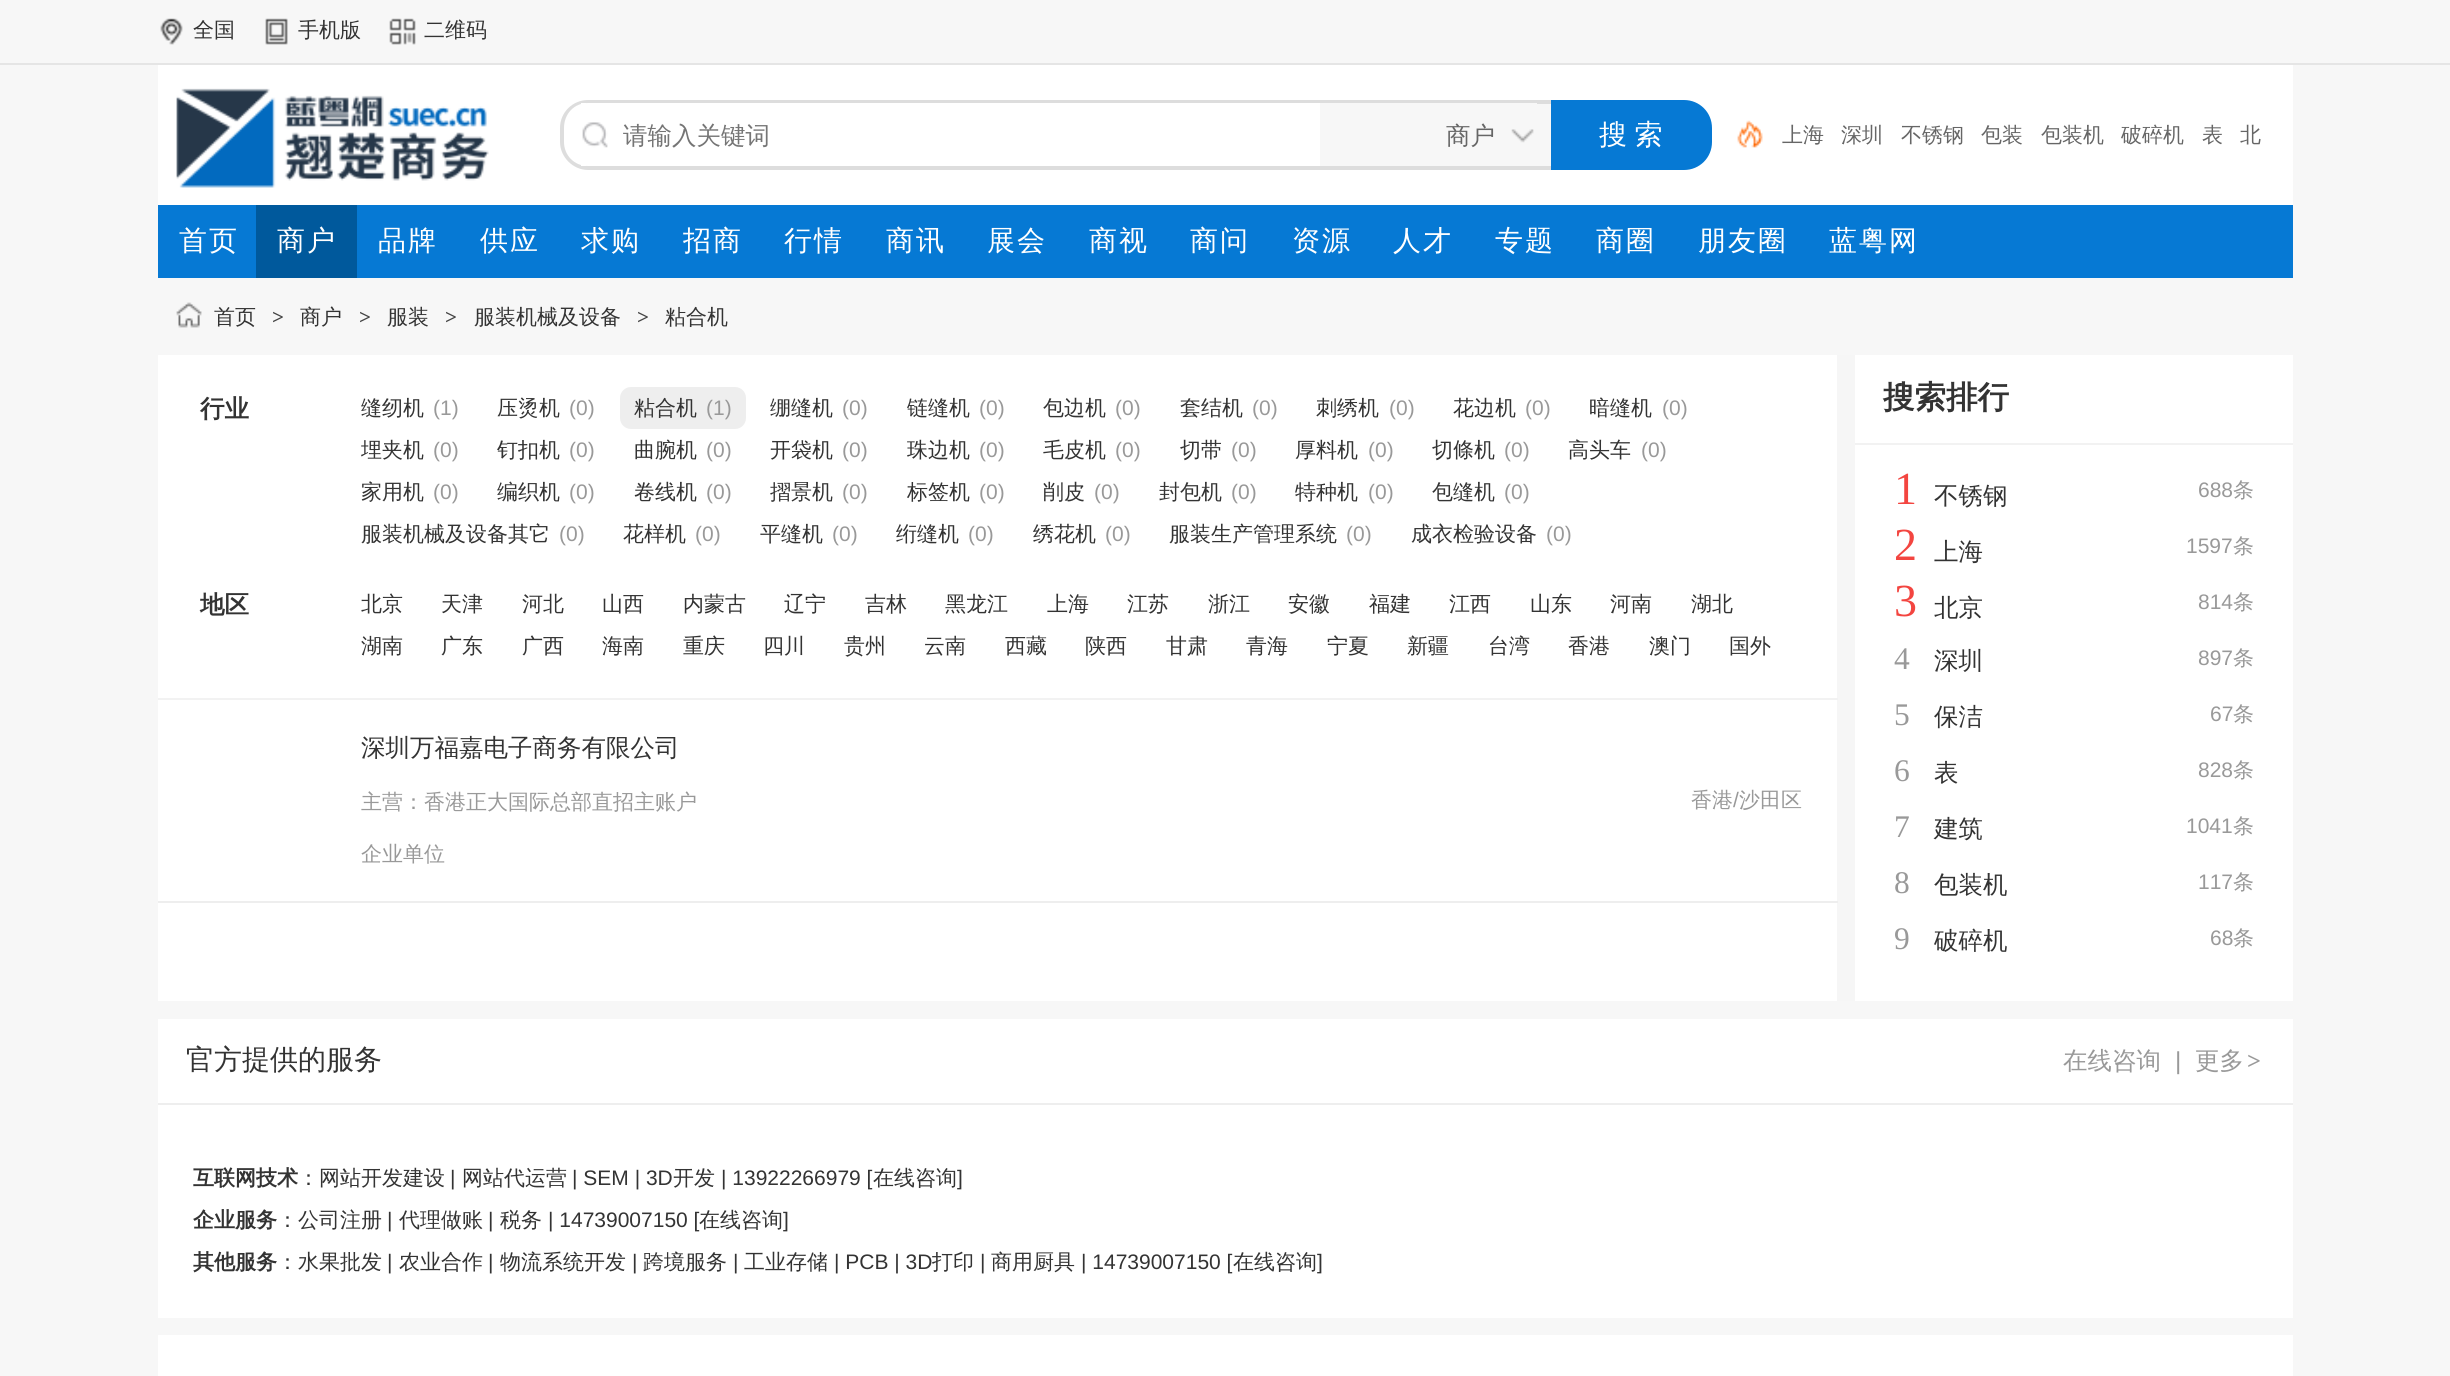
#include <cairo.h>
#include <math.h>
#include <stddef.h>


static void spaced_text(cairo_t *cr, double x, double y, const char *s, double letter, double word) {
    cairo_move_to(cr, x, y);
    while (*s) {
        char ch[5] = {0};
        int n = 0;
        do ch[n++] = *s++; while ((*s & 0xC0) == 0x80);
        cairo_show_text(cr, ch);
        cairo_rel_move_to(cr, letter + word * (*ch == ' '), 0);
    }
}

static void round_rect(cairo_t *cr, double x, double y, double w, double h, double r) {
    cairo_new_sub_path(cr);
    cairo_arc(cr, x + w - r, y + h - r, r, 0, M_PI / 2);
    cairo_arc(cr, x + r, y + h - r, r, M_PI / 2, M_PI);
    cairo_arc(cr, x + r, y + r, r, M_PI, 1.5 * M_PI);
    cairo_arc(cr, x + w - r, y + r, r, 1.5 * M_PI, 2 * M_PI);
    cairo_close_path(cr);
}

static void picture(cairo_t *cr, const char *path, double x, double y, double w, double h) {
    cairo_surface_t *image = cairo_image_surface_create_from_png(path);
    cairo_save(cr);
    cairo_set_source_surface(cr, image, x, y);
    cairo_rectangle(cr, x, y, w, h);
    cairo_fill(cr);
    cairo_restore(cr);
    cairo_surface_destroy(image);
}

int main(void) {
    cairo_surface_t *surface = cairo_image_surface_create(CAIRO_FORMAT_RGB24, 2450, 1376);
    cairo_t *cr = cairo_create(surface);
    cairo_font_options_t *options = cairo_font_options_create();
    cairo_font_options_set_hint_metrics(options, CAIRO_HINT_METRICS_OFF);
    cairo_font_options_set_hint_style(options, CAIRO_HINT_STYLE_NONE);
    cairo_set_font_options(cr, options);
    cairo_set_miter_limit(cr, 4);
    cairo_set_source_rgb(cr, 0.965, 0.965, 0.965);
    cairo_paint(cr);
    cairo_set_source_rgb(cr, 0.898, 0.898, 0.898);
    cairo_rectangle(cr, 0, 63, 2450, 2);
    cairo_fill(cr);
    picture(cr, "img1.png", 160, 18, 23, 27);
    cairo_select_font_face(cr, "WenQuanYi Zen Hei Medium", CAIRO_FONT_SLANT_NORMAL, CAIRO_FONT_WEIGHT_NORMAL);
    cairo_set_font_size(cr, 21);
    cairo_set_source_rgb(cr, 0.2, 0.2, 0.2);
    cairo_move_to(cr, 193, 37);
    cairo_show_text(cr, "全国");
    picture(cr, "img2.png", 265, 18, 23, 27);
    cairo_move_to(cr, 298, 37);
    cairo_show_text(cr, "手机版");
    picture(cr, "img3.png", 389, 18, 27, 27);
    cairo_move_to(cr, 424, 37);
    cairo_show_text(cr, "二维码");
    cairo_set_source_rgb(cr, 1, 1, 1);
    cairo_rectangle(cr, 158, 65, 2135, 140);
    cairo_fill(cr);
    picture(cr, "img4.png", 176, 88, 313, 100);
    cairo_set_source_rgb(cr, 0.867, 0.867, 0.867);
    cairo_set_fill_rule(cr, CAIRO_FILL_RULE_EVEN_ODD);
    cairo_new_path(cr);
    cairo_move_to(cr, 588, 100);
    cairo_line_to(cr, 1320, 100);
    cairo_line_to(cr, 1320, 170);
    cairo_line_to(cr, 588, 170);
    cairo_curve_to(cr, 573, 170, 560, 157, 560, 142);
    cairo_line_to(cr, 560, 128);
    cairo_curve_to(cr, 560, 112, 573, 100, 588, 100);
    cairo_close_path(cr);
    cairo_move_to(cr, 588, 103);
    cairo_line_to(cr, 1320, 103);
    cairo_line_to(cr, 1320, 166);
    cairo_line_to(cr, 588, 166);
    cairo_curve_to(cr, 574, 166, 564, 155, 564, 142);
    cairo_line_to(cr, 564, 128);
    cairo_curve_to(cr, 564, 114, 574, 103, 588, 103);
    cairo_close_path(cr);
    cairo_fill(cr);
    cairo_set_source_rgb(cr, 1, 1, 1);
    cairo_rectangle(cr, 581, 103, 5, 63);
    cairo_fill(cr);
    picture(cr, "img5.png", 582, 122, 26, 26);
    cairo_set_font_size(cr, 24.5);
    cairo_set_source_rgb(cr, 0.459, 0.459, 0.459);
    cairo_move_to(cr, 623, 144);
    cairo_show_text(cr, "请输入关键词");
    cairo_set_source_rgb(cr, 0.965, 0.965, 0.965);
    cairo_rectangle(cr, 1537, 104, 14, 62);
    cairo_fill(cr);
    cairo_set_source_rgb(cr, 0.867, 0.867, 0.867);
    cairo_rectangle(cr, 1320, 100, 231, 4);
    cairo_fill(cr);
    cairo_rectangle(cr, 1320, 166, 231, 4);
    cairo_fill(cr);
    cairo_set_source_rgb(cr, 0.965, 0.965, 0.965);
    cairo_rectangle(cr, 1320, 103, 217, 63);
    cairo_fill(cr);
    picture(cr, "img6.png", 1511, 129, 23, 14);
    cairo_set_source_rgb(cr, 0.4, 0.4, 0.4);
    cairo_move_to(cr, 1446, 144);
    cairo_show_text(cr, "商户");
    cairo_set_source_rgb(cr, 0.024, 0.475, 0.831);
    cairo_new_path(cr);
    cairo_move_to(cr, 1553, 102);
    cairo_line_to(cr, 1684, 102);
    cairo_curve_to(cr, 1698.5, 102, 1710, 113.5, 1710, 128);
    cairo_line_to(cr, 1710, 142);
    cairo_curve_to(cr, 1710, 156.5, 1698.5, 168, 1684, 168);
    cairo_line_to(cr, 1553, 168);
    cairo_close_path(cr);
    cairo_fill_preserve(cr);
    cairo_set_line_width(cr, 4);
    cairo_stroke(cr);
    cairo_set_font_size(cr, 28);
    cairo_set_source_rgb(cr, 1, 1, 1);
    spaced_text(cr, 1599, 144, "搜 索", 0, -1);
    picture(cr, "img7.png", 1737, 120, 26, 28);
    cairo_set_font_size(cr, 21);
    cairo_set_source_rgb(cr, 0.4, 0.4, 0.4);
    cairo_move_to(cr, 1782, 142);
    cairo_show_text(cr, "上海");
    cairo_move_to(cr, 1841, 142);
    cairo_show_text(cr, "深圳");
    cairo_move_to(cr, 1901, 142);
    cairo_show_text(cr, "不锈钢");
    cairo_move_to(cr, 1981, 142);
    cairo_show_text(cr, "包装");
    cairo_move_to(cr, 2041, 142);
    cairo_show_text(cr, "包装机");
    cairo_move_to(cr, 2121, 142);
    cairo_show_text(cr, "破碎机");
    cairo_move_to(cr, 2202, 142);
    cairo_show_text(cr, "表");
    cairo_move_to(cr, 2240, 142);
    cairo_show_text(cr, "北");
    cairo_set_source_rgb(cr, 0.024, 0.475, 0.831);
    cairo_rectangle(cr, 158, 205, 2135, 73);
    cairo_fill(cr);
    cairo_set_font_size(cr, 28);
    cairo_set_source_rgb(cr, 1, 1, 1);
    spaced_text(cr, 179, 250, "首页", 2, 0);
    cairo_set_source_rgb(cr, 0, 0.349, 0.612);
    cairo_rectangle(cr, 256, 205, 101, 73);
    cairo_fill(cr);
    cairo_set_source_rgb(cr, 1, 1, 1);
    spaced_text(cr, 277, 250, "商户", 2, 0);
    spaced_text(cr, 378, 250, "品牌", 2, 0);
    spaced_text(cr, 480, 250, "供应", 2, 0);
    spaced_text(cr, 581, 250, "求购", 2, 0);
    spaced_text(cr, 683, 250, "招商", 2, 0);
    spaced_text(cr, 784, 250, "行情", 2, 0);
    spaced_text(cr, 886, 250, "商讯", 2, 0);
    spaced_text(cr, 987, 250, "展会", 2, 0);
    spaced_text(cr, 1089, 250, "商视", 2, 0);
    spaced_text(cr, 1190, 250, "商问", 2, 0);
    spaced_text(cr, 1292, 250, "资源", 2, 0);
    spaced_text(cr, 1393, 250, "人才", 2, 0);
    spaced_text(cr, 1495, 250, "专题", 2, 0);
    spaced_text(cr, 1596, 250, "商圈", 2, 0);
    spaced_text(cr, 1698, 250, "朋友圈", 2, 0);
    spaced_text(cr, 1829, 250, "蓝粤网", 2, 0);
    picture(cr, "img8.png", 176, 302, 26, 26);
    cairo_set_font_size(cr, 21);
    cairo_set_source_rgb(cr, 0.2, 0.2, 0.2);
    cairo_move_to(cr, 214, 324);
    cairo_show_text(cr, "首页");
    cairo_select_font_face(cr, "Liberation Serif", CAIRO_FONT_SLANT_NORMAL, CAIRO_FONT_WEIGHT_BOLD);
    cairo_set_source_rgb(cr, 0.267, 0.267, 0.267);
    cairo_move_to(cr, 272, 324);
    cairo_show_text(cr, ">");
    cairo_select_font_face(cr, "WenQuanYi Zen Hei Medium", CAIRO_FONT_SLANT_NORMAL, CAIRO_FONT_WEIGHT_NORMAL);
    cairo_set_source_rgb(cr, 0.2, 0.2, 0.2);
    cairo_move_to(cr, 300, 324);
    cairo_show_text(cr, "商户");
    cairo_select_font_face(cr, "Liberation Serif", CAIRO_FONT_SLANT_NORMAL, CAIRO_FONT_WEIGHT_BOLD);
    cairo_set_source_rgb(cr, 0.267, 0.267, 0.267);
    cairo_move_to(cr, 359, 324);
    cairo_show_text(cr, ">");
    cairo_select_font_face(cr, "WenQuanYi Zen Hei Medium", CAIRO_FONT_SLANT_NORMAL, CAIRO_FONT_WEIGHT_NORMAL);
    cairo_set_source_rgb(cr, 0.2, 0.2, 0.2);
    cairo_move_to(cr, 387, 324);
    cairo_show_text(cr, "服装");
    cairo_select_font_face(cr, "Liberation Serif", CAIRO_FONT_SLANT_NORMAL, CAIRO_FONT_WEIGHT_BOLD);
    cairo_set_source_rgb(cr, 0.267, 0.267, 0.267);
    cairo_move_to(cr, 445, 324);
    cairo_show_text(cr, ">");
    cairo_select_font_face(cr, "WenQuanYi Zen Hei Medium", CAIRO_FONT_SLANT_NORMAL, CAIRO_FONT_WEIGHT_NORMAL);
    cairo_set_source_rgb(cr, 0.2, 0.2, 0.2);
    cairo_move_to(cr, 474, 324);
    cairo_show_text(cr, "服装机械及设备");
    cairo_select_font_face(cr, "Liberation Serif", CAIRO_FONT_SLANT_NORMAL, CAIRO_FONT_WEIGHT_BOLD);
    cairo_set_source_rgb(cr, 0.267, 0.267, 0.267);
    cairo_move_to(cr, 637, 324);
    cairo_show_text(cr, ">");
    cairo_select_font_face(cr, "WenQuanYi Zen Hei Medium", CAIRO_FONT_SLANT_NORMAL, CAIRO_FONT_WEIGHT_NORMAL);
    cairo_set_source_rgb(cr, 0.2, 0.2, 0.2);
    cairo_move_to(cr, 665, 324);
    cairo_show_text(cr, "粘合机");
    cairo_set_source_rgb(cr, 1, 1, 1);
    cairo_rectangle(cr, 158, 355, 2135, 646);
    cairo_fill(cr);
    cairo_set_source_rgb(cr, 0.961, 0.961, 0.961);
    cairo_rectangle(cr, 1837, 355, 18, 646);
    cairo_fill(cr);
    cairo_set_source_rgb(cr, 0.949, 0.949, 0.949);
    cairo_rectangle(cr, 158, 698, 1680, 2);
    cairo_fill(cr);
    cairo_select_font_face(cr, "WenQuanYi Zen Hei", CAIRO_FONT_SLANT_NORMAL, CAIRO_FONT_WEIGHT_BOLD);
    cairo_set_font_size(cr, 24.5);
    cairo_set_source_rgb(cr, 0.2, 0.2, 0.2);
    cairo_move_to(cr, 200, 417);
    cairo_show_text(cr, "行业");
    cairo_select_font_face(cr, "WenQuanYi Zen Hei Medium", CAIRO_FONT_SLANT_NORMAL, CAIRO_FONT_WEIGHT_NORMAL);
    cairo_set_font_size(cr, 21);
    cairo_move_to(cr, 361, 415);
    cairo_show_text(cr, "缝纫机");
    cairo_select_font_face(cr, "Liberation Sans", CAIRO_FONT_SLANT_NORMAL, CAIRO_FONT_WEIGHT_NORMAL);
    cairo_set_source_rgb(cr, 0.6, 0.6, 0.6);
    cairo_move_to(cr, 433, 415);
    cairo_show_text(cr, "(1)");
    cairo_select_font_face(cr, "WenQuanYi Zen Hei Medium", CAIRO_FONT_SLANT_NORMAL, CAIRO_FONT_WEIGHT_NORMAL);
    cairo_set_source_rgb(cr, 0.2, 0.2, 0.2);
    cairo_move_to(cr, 497, 415);
    cairo_show_text(cr, "压烫机");
    cairo_select_font_face(cr, "Liberation Sans", CAIRO_FONT_SLANT_NORMAL, CAIRO_FONT_WEIGHT_NORMAL);
    cairo_set_source_rgb(cr, 0.6, 0.6, 0.6);
    cairo_move_to(cr, 569, 415);
    cairo_show_text(cr, "(0)");
    cairo_set_source_rgb(cr, 0.933, 0.933, 0.933);
    round_rect(cr, 620, 387, 126, 42, 11);
    cairo_fill(cr);
    cairo_select_font_face(cr, "WenQuanYi Zen Hei Medium", CAIRO_FONT_SLANT_NORMAL, CAIRO_FONT_WEIGHT_NORMAL);
    cairo_set_source_rgb(cr, 0.2, 0.2, 0.2);
    cairo_move_to(cr, 634, 415);
    cairo_show_text(cr, "粘合机");
    cairo_select_font_face(cr, "Liberation Sans", CAIRO_FONT_SLANT_NORMAL, CAIRO_FONT_WEIGHT_NORMAL);
    cairo_set_source_rgb(cr, 0.6, 0.6, 0.6);
    cairo_move_to(cr, 706, 415);
    cairo_show_text(cr, "(1)");
    cairo_select_font_face(cr, "WenQuanYi Zen Hei Medium", CAIRO_FONT_SLANT_NORMAL, CAIRO_FONT_WEIGHT_NORMAL);
    cairo_set_source_rgb(cr, 0.2, 0.2, 0.2);
    cairo_move_to(cr, 770, 415);
    cairo_show_text(cr, "绷缝机");
    cairo_select_font_face(cr, "Liberation Sans", CAIRO_FONT_SLANT_NORMAL, CAIRO_FONT_WEIGHT_NORMAL);
    cairo_set_source_rgb(cr, 0.6, 0.6, 0.6);
    cairo_move_to(cr, 842, 415);
    cairo_show_text(cr, "(0)");
    cairo_select_font_face(cr, "WenQuanYi Zen Hei Medium", CAIRO_FONT_SLANT_NORMAL, CAIRO_FONT_WEIGHT_NORMAL);
    cairo_set_source_rgb(cr, 0.2, 0.2, 0.2);
    cairo_move_to(cr, 907, 415);
    cairo_show_text(cr, "链缝机");
    cairo_select_font_face(cr, "Liberation Sans", CAIRO_FONT_SLANT_NORMAL, CAIRO_FONT_WEIGHT_NORMAL);
    cairo_set_source_rgb(cr, 0.6, 0.6, 0.6);
    cairo_move_to(cr, 979, 415);
    cairo_show_text(cr, "(0)");
    cairo_select_font_face(cr, "WenQuanYi Zen Hei Medium", CAIRO_FONT_SLANT_NORMAL, CAIRO_FONT_WEIGHT_NORMAL);
    cairo_set_source_rgb(cr, 0.2, 0.2, 0.2);
    cairo_move_to(cr, 1043, 415);
    cairo_show_text(cr, "包边机");
    cairo_select_font_face(cr, "Liberation Sans", CAIRO_FONT_SLANT_NORMAL, CAIRO_FONT_WEIGHT_NORMAL);
    cairo_set_source_rgb(cr, 0.6, 0.6, 0.6);
    cairo_move_to(cr, 1115, 415);
    cairo_show_text(cr, "(0)");
    cairo_select_font_face(cr, "WenQuanYi Zen Hei Medium", CAIRO_FONT_SLANT_NORMAL, CAIRO_FONT_WEIGHT_NORMAL);
    cairo_set_source_rgb(cr, 0.2, 0.2, 0.2);
    cairo_move_to(cr, 1180, 415);
    cairo_show_text(cr, "套结机");
    cairo_select_font_face(cr, "Liberation Sans", CAIRO_FONT_SLANT_NORMAL, CAIRO_FONT_WEIGHT_NORMAL);
    cairo_set_source_rgb(cr, 0.6, 0.6, 0.6);
    cairo_move_to(cr, 1252, 415);
    cairo_show_text(cr, "(0)");
    cairo_select_font_face(cr, "WenQuanYi Zen Hei Medium", CAIRO_FONT_SLANT_NORMAL, CAIRO_FONT_WEIGHT_NORMAL);
    cairo_set_source_rgb(cr, 0.2, 0.2, 0.2);
    cairo_move_to(cr, 1316, 415);
    cairo_show_text(cr, "刺绣机");
    cairo_select_font_face(cr, "Liberation Sans", CAIRO_FONT_SLANT_NORMAL, CAIRO_FONT_WEIGHT_NORMAL);
    cairo_set_source_rgb(cr, 0.6, 0.6, 0.6);
    cairo_move_to(cr, 1389, 415);
    cairo_show_text(cr, "(0)");
    cairo_select_font_face(cr, "WenQuanYi Zen Hei Medium", CAIRO_FONT_SLANT_NORMAL, CAIRO_FONT_WEIGHT_NORMAL);
    cairo_set_source_rgb(cr, 0.2, 0.2, 0.2);
    cairo_move_to(cr, 1453, 415);
    cairo_show_text(cr, "花边机");
    cairo_select_font_face(cr, "Liberation Sans", CAIRO_FONT_SLANT_NORMAL, CAIRO_FONT_WEIGHT_NORMAL);
    cairo_set_source_rgb(cr, 0.6, 0.6, 0.6);
    cairo_move_to(cr, 1525, 415);
    cairo_show_text(cr, "(0)");
    cairo_select_font_face(cr, "WenQuanYi Zen Hei Medium", CAIRO_FONT_SLANT_NORMAL, CAIRO_FONT_WEIGHT_NORMAL);
    cairo_set_source_rgb(cr, 0.2, 0.2, 0.2);
    cairo_move_to(cr, 1589, 415);
    cairo_show_text(cr, "暗缝机");
    cairo_select_font_face(cr, "Liberation Sans", CAIRO_FONT_SLANT_NORMAL, CAIRO_FONT_WEIGHT_NORMAL);
    cairo_set_source_rgb(cr, 0.6, 0.6, 0.6);
    cairo_move_to(cr, 1662, 415);
    cairo_show_text(cr, "(0)");
    cairo_select_font_face(cr, "WenQuanYi Zen Hei Medium", CAIRO_FONT_SLANT_NORMAL, CAIRO_FONT_WEIGHT_NORMAL);
    cairo_set_source_rgb(cr, 0.2, 0.2, 0.2);
    cairo_move_to(cr, 361, 457);
    cairo_show_text(cr, "埋夹机");
    cairo_select_font_face(cr, "Liberation Sans", CAIRO_FONT_SLANT_NORMAL, CAIRO_FONT_WEIGHT_NORMAL);
    cairo_set_source_rgb(cr, 0.6, 0.6, 0.6);
    cairo_move_to(cr, 433, 457);
    cairo_show_text(cr, "(0)");
    cairo_select_font_face(cr, "WenQuanYi Zen Hei Medium", CAIRO_FONT_SLANT_NORMAL, CAIRO_FONT_WEIGHT_NORMAL);
    cairo_set_source_rgb(cr, 0.2, 0.2, 0.2);
    cairo_move_to(cr, 497, 457);
    cairo_show_text(cr, "钉扣机");
    cairo_select_font_face(cr, "Liberation Sans", CAIRO_FONT_SLANT_NORMAL, CAIRO_FONT_WEIGHT_NORMAL);
    cairo_set_source_rgb(cr, 0.6, 0.6, 0.6);
    cairo_move_to(cr, 569, 457);
    cairo_show_text(cr, "(0)");
    cairo_select_font_face(cr, "WenQuanYi Zen Hei Medium", CAIRO_FONT_SLANT_NORMAL, CAIRO_FONT_WEIGHT_NORMAL);
    cairo_set_source_rgb(cr, 0.2, 0.2, 0.2);
    cairo_move_to(cr, 634, 457);
    cairo_show_text(cr, "曲腕机");
    cairo_select_font_face(cr, "Liberation Sans", CAIRO_FONT_SLANT_NORMAL, CAIRO_FONT_WEIGHT_NORMAL);
    cairo_set_source_rgb(cr, 0.6, 0.6, 0.6);
    cairo_move_to(cr, 706, 457);
    cairo_show_text(cr, "(0)");
    cairo_select_font_face(cr, "WenQuanYi Zen Hei Medium", CAIRO_FONT_SLANT_NORMAL, CAIRO_FONT_WEIGHT_NORMAL);
    cairo_set_source_rgb(cr, 0.2, 0.2, 0.2);
    cairo_move_to(cr, 770, 457);
    cairo_show_text(cr, "开袋机");
    cairo_select_font_face(cr, "Liberation Sans", CAIRO_FONT_SLANT_NORMAL, CAIRO_FONT_WEIGHT_NORMAL);
    cairo_set_source_rgb(cr, 0.6, 0.6, 0.6);
    cairo_move_to(cr, 842, 457);
    cairo_show_text(cr, "(0)");
    cairo_select_font_face(cr, "WenQuanYi Zen Hei Medium", CAIRO_FONT_SLANT_NORMAL, CAIRO_FONT_WEIGHT_NORMAL);
    cairo_set_source_rgb(cr, 0.2, 0.2, 0.2);
    cairo_move_to(cr, 907, 457);
    cairo_show_text(cr, "珠边机");
    cairo_select_font_face(cr, "Liberation Sans", CAIRO_FONT_SLANT_NORMAL, CAIRO_FONT_WEIGHT_NORMAL);
    cairo_set_source_rgb(cr, 0.6, 0.6, 0.6);
    cairo_move_to(cr, 979, 457);
    cairo_show_text(cr, "(0)");
    cairo_select_font_face(cr, "WenQuanYi Zen Hei Medium", CAIRO_FONT_SLANT_NORMAL, CAIRO_FONT_WEIGHT_NORMAL);
    cairo_set_source_rgb(cr, 0.2, 0.2, 0.2);
    cairo_move_to(cr, 1043, 457);
    cairo_show_text(cr, "毛皮机");
    cairo_select_font_face(cr, "Liberation Sans", CAIRO_FONT_SLANT_NORMAL, CAIRO_FONT_WEIGHT_NORMAL);
    cairo_set_source_rgb(cr, 0.6, 0.6, 0.6);
    cairo_move_to(cr, 1115, 457);
    cairo_show_text(cr, "(0)");
    cairo_select_font_face(cr, "WenQuanYi Zen Hei Medium", CAIRO_FONT_SLANT_NORMAL, CAIRO_FONT_WEIGHT_NORMAL);
    cairo_set_source_rgb(cr, 0.2, 0.2, 0.2);
    cairo_move_to(cr, 1180, 457);
    cairo_show_text(cr, "切带");
    cairo_select_font_face(cr, "Liberation Sans", CAIRO_FONT_SLANT_NORMAL, CAIRO_FONT_WEIGHT_NORMAL);
    cairo_set_source_rgb(cr, 0.6, 0.6, 0.6);
    cairo_move_to(cr, 1231, 457);
    cairo_show_text(cr, "(0)");
    cairo_select_font_face(cr, "WenQuanYi Zen Hei Medium", CAIRO_FONT_SLANT_NORMAL, CAIRO_FONT_WEIGHT_NORMAL);
    cairo_set_source_rgb(cr, 0.2, 0.2, 0.2);
    cairo_move_to(cr, 1295, 457);
    cairo_show_text(cr, "厚料机");
    cairo_select_font_face(cr, "Liberation Sans", CAIRO_FONT_SLANT_NORMAL, CAIRO_FONT_WEIGHT_NORMAL);
    cairo_set_source_rgb(cr, 0.6, 0.6, 0.6);
    cairo_move_to(cr, 1368, 457);
    cairo_show_text(cr, "(0)");
    cairo_select_font_face(cr, "WenQuanYi Zen Hei Medium", CAIRO_FONT_SLANT_NORMAL, CAIRO_FONT_WEIGHT_NORMAL);
    cairo_set_source_rgb(cr, 0.2, 0.2, 0.2);
    cairo_move_to(cr, 1432, 457);
    cairo_show_text(cr, "切條机");
    cairo_select_font_face(cr, "Liberation Sans", CAIRO_FONT_SLANT_NORMAL, CAIRO_FONT_WEIGHT_NORMAL);
    cairo_set_source_rgb(cr, 0.6, 0.6, 0.6);
    cairo_move_to(cr, 1504, 457);
    cairo_show_text(cr, "(0)");
    cairo_select_font_face(cr, "WenQuanYi Zen Hei Medium", CAIRO_FONT_SLANT_NORMAL, CAIRO_FONT_WEIGHT_NORMAL);
    cairo_set_source_rgb(cr, 0.2, 0.2, 0.2);
    cairo_move_to(cr, 1568, 457);
    cairo_show_text(cr, "高头车");
    cairo_select_font_face(cr, "Liberation Sans", CAIRO_FONT_SLANT_NORMAL, CAIRO_FONT_WEIGHT_NORMAL);
    cairo_set_source_rgb(cr, 0.6, 0.6, 0.6);
    cairo_move_to(cr, 1641, 457);
    cairo_show_text(cr, "(0)");
    cairo_select_font_face(cr, "WenQuanYi Zen Hei Medium", CAIRO_FONT_SLANT_NORMAL, CAIRO_FONT_WEIGHT_NORMAL);
    cairo_set_source_rgb(cr, 0.2, 0.2, 0.2);
    cairo_move_to(cr, 361, 499);
    cairo_show_text(cr, "家用机");
    cairo_select_font_face(cr, "Liberation Sans", CAIRO_FONT_SLANT_NORMAL, CAIRO_FONT_WEIGHT_NORMAL);
    cairo_set_source_rgb(cr, 0.6, 0.6, 0.6);
    cairo_move_to(cr, 433, 499);
    cairo_show_text(cr, "(0)");
    cairo_select_font_face(cr, "WenQuanYi Zen Hei Medium", CAIRO_FONT_SLANT_NORMAL, CAIRO_FONT_WEIGHT_NORMAL);
    cairo_set_source_rgb(cr, 0.2, 0.2, 0.2);
    cairo_move_to(cr, 497, 499);
    cairo_show_text(cr, "编织机");
    cairo_select_font_face(cr, "Liberation Sans", CAIRO_FONT_SLANT_NORMAL, CAIRO_FONT_WEIGHT_NORMAL);
    cairo_set_source_rgb(cr, 0.6, 0.6, 0.6);
    cairo_move_to(cr, 569, 499);
    cairo_show_text(cr, "(0)");
    cairo_select_font_face(cr, "WenQuanYi Zen Hei Medium", CAIRO_FONT_SLANT_NORMAL, CAIRO_FONT_WEIGHT_NORMAL);
    cairo_set_source_rgb(cr, 0.2, 0.2, 0.2);
    cairo_move_to(cr, 634, 499);
    cairo_show_text(cr, "卷线机");
    cairo_select_font_face(cr, "Liberation Sans", CAIRO_FONT_SLANT_NORMAL, CAIRO_FONT_WEIGHT_NORMAL);
    cairo_set_source_rgb(cr, 0.6, 0.6, 0.6);
    cairo_move_to(cr, 706, 499);
    cairo_show_text(cr, "(0)");
    cairo_select_font_face(cr, "WenQuanYi Zen Hei Medium", CAIRO_FONT_SLANT_NORMAL, CAIRO_FONT_WEIGHT_NORMAL);
    cairo_set_source_rgb(cr, 0.2, 0.2, 0.2);
    cairo_move_to(cr, 770, 499);
    cairo_show_text(cr, "摺景机");
    cairo_select_font_face(cr, "Liberation Sans", CAIRO_FONT_SLANT_NORMAL, CAIRO_FONT_WEIGHT_NORMAL);
    cairo_set_source_rgb(cr, 0.6, 0.6, 0.6);
    cairo_move_to(cr, 842, 499);
    cairo_show_text(cr, "(0)");
    cairo_select_font_face(cr, "WenQuanYi Zen Hei Medium", CAIRO_FONT_SLANT_NORMAL, CAIRO_FONT_WEIGHT_NORMAL);
    cairo_set_source_rgb(cr, 0.2, 0.2, 0.2);
    cairo_move_to(cr, 907, 499);
    cairo_show_text(cr, "标签机");
    cairo_select_font_face(cr, "Liberation Sans", CAIRO_FONT_SLANT_NORMAL, CAIRO_FONT_WEIGHT_NORMAL);
    cairo_set_source_rgb(cr, 0.6, 0.6, 0.6);
    cairo_move_to(cr, 979, 499);
    cairo_show_text(cr, "(0)");
    cairo_select_font_face(cr, "WenQuanYi Zen Hei Medium", CAIRO_FONT_SLANT_NORMAL, CAIRO_FONT_WEIGHT_NORMAL);
    cairo_set_source_rgb(cr, 0.2, 0.2, 0.2);
    cairo_move_to(cr, 1043, 499);
    cairo_show_text(cr, "削皮");
    cairo_select_font_face(cr, "Liberation Sans", CAIRO_FONT_SLANT_NORMAL, CAIRO_FONT_WEIGHT_NORMAL);
    cairo_set_source_rgb(cr, 0.6, 0.6, 0.6);
    cairo_move_to(cr, 1094, 499);
    cairo_show_text(cr, "(0)");
    cairo_select_font_face(cr, "WenQuanYi Zen Hei Medium", CAIRO_FONT_SLANT_NORMAL, CAIRO_FONT_WEIGHT_NORMAL);
    cairo_set_source_rgb(cr, 0.2, 0.2, 0.2);
    cairo_move_to(cr, 1159, 499);
    cairo_show_text(cr, "封包机");
    cairo_select_font_face(cr, "Liberation Sans", CAIRO_FONT_SLANT_NORMAL, CAIRO_FONT_WEIGHT_NORMAL);
    cairo_set_source_rgb(cr, 0.6, 0.6, 0.6);
    cairo_move_to(cr, 1231, 499);
    cairo_show_text(cr, "(0)");
    cairo_select_font_face(cr, "WenQuanYi Zen Hei Medium", CAIRO_FONT_SLANT_NORMAL, CAIRO_FONT_WEIGHT_NORMAL);
    cairo_set_source_rgb(cr, 0.2, 0.2, 0.2);
    cairo_move_to(cr, 1295, 499);
    cairo_show_text(cr, "特种机");
    cairo_select_font_face(cr, "Liberation Sans", CAIRO_FONT_SLANT_NORMAL, CAIRO_FONT_WEIGHT_NORMAL);
    cairo_set_source_rgb(cr, 0.6, 0.6, 0.6);
    cairo_move_to(cr, 1368, 499);
    cairo_show_text(cr, "(0)");
    cairo_select_font_face(cr, "WenQuanYi Zen Hei Medium", CAIRO_FONT_SLANT_NORMAL, CAIRO_FONT_WEIGHT_NORMAL);
    cairo_set_source_rgb(cr, 0.2, 0.2, 0.2);
    cairo_move_to(cr, 1432, 499);
    cairo_show_text(cr, "包缝机");
    cairo_select_font_face(cr, "Liberation Sans", CAIRO_FONT_SLANT_NORMAL, CAIRO_FONT_WEIGHT_NORMAL);
    cairo_set_source_rgb(cr, 0.6, 0.6, 0.6);
    cairo_move_to(cr, 1504, 499);
    cairo_show_text(cr, "(0)");
    cairo_select_font_face(cr, "WenQuanYi Zen Hei Medium", CAIRO_FONT_SLANT_NORMAL, CAIRO_FONT_WEIGHT_NORMAL);
    cairo_set_source_rgb(cr, 0.2, 0.2, 0.2);
    cairo_move_to(cr, 361, 541);
    cairo_show_text(cr, "服装机械及设备其它");
    cairo_select_font_face(cr, "Liberation Sans", CAIRO_FONT_SLANT_NORMAL, CAIRO_FONT_WEIGHT_NORMAL);
    cairo_set_source_rgb(cr, 0.6, 0.6, 0.6);
    cairo_move_to(cr, 559, 541);
    cairo_show_text(cr, "(0)");
    cairo_select_font_face(cr, "WenQuanYi Zen Hei Medium", CAIRO_FONT_SLANT_NORMAL, CAIRO_FONT_WEIGHT_NORMAL);
    cairo_set_source_rgb(cr, 0.2, 0.2, 0.2);
    cairo_move_to(cr, 623, 541);
    cairo_show_text(cr, "花样机");
    cairo_select_font_face(cr, "Liberation Sans", CAIRO_FONT_SLANT_NORMAL, CAIRO_FONT_WEIGHT_NORMAL);
    cairo_set_source_rgb(cr, 0.6, 0.6, 0.6);
    cairo_move_to(cr, 695, 541);
    cairo_show_text(cr, "(0)");
    cairo_select_font_face(cr, "WenQuanYi Zen Hei Medium", CAIRO_FONT_SLANT_NORMAL, CAIRO_FONT_WEIGHT_NORMAL);
    cairo_set_source_rgb(cr, 0.2, 0.2, 0.2);
    cairo_move_to(cr, 760, 541);
    cairo_show_text(cr, "平缝机");
    cairo_select_font_face(cr, "Liberation Sans", CAIRO_FONT_SLANT_NORMAL, CAIRO_FONT_WEIGHT_NORMAL);
    cairo_set_source_rgb(cr, 0.6, 0.6, 0.6);
    cairo_move_to(cr, 832, 541);
    cairo_show_text(cr, "(0)");
    cairo_select_font_face(cr, "WenQuanYi Zen Hei Medium", CAIRO_FONT_SLANT_NORMAL, CAIRO_FONT_WEIGHT_NORMAL);
    cairo_set_source_rgb(cr, 0.2, 0.2, 0.2);
    cairo_move_to(cr, 896, 541);
    cairo_show_text(cr, "绗缝机");
    cairo_select_font_face(cr, "Liberation Sans", CAIRO_FONT_SLANT_NORMAL, CAIRO_FONT_WEIGHT_NORMAL);
    cairo_set_source_rgb(cr, 0.6, 0.6, 0.6);
    cairo_move_to(cr, 968, 541);
    cairo_show_text(cr, "(0)");
    cairo_select_font_face(cr, "WenQuanYi Zen Hei Medium", CAIRO_FONT_SLANT_NORMAL, CAIRO_FONT_WEIGHT_NORMAL);
    cairo_set_source_rgb(cr, 0.2, 0.2, 0.2);
    cairo_move_to(cr, 1033, 541);
    cairo_show_text(cr, "绣花机");
    cairo_select_font_face(cr, "Liberation Sans", CAIRO_FONT_SLANT_NORMAL, CAIRO_FONT_WEIGHT_NORMAL);
    cairo_set_source_rgb(cr, 0.6, 0.6, 0.6);
    cairo_move_to(cr, 1105, 541);
    cairo_show_text(cr, "(0)");
    cairo_select_font_face(cr, "WenQuanYi Zen Hei Medium", CAIRO_FONT_SLANT_NORMAL, CAIRO_FONT_WEIGHT_NORMAL);
    cairo_set_source_rgb(cr, 0.2, 0.2, 0.2);
    cairo_move_to(cr, 1169, 541);
    cairo_show_text(cr, "服装生产管理系统");
    cairo_select_font_face(cr, "Liberation Sans", CAIRO_FONT_SLANT_NORMAL, CAIRO_FONT_WEIGHT_NORMAL);
    cairo_set_source_rgb(cr, 0.6, 0.6, 0.6);
    cairo_move_to(cr, 1346, 541);
    cairo_show_text(cr, "(0)");
    cairo_select_font_face(cr, "WenQuanYi Zen Hei Medium", CAIRO_FONT_SLANT_NORMAL, CAIRO_FONT_WEIGHT_NORMAL);
    cairo_set_source_rgb(cr, 0.2, 0.2, 0.2);
    cairo_move_to(cr, 1411, 541);
    cairo_show_text(cr, "成衣检验设备");
    cairo_select_font_face(cr, "Liberation Sans", CAIRO_FONT_SLANT_NORMAL, CAIRO_FONT_WEIGHT_NORMAL);
    cairo_set_source_rgb(cr, 0.6, 0.6, 0.6);
    cairo_move_to(cr, 1546, 541);
    cairo_show_text(cr, "(0)");
    cairo_select_font_face(cr, "WenQuanYi Zen Hei", CAIRO_FONT_SLANT_NORMAL, CAIRO_FONT_WEIGHT_BOLD);
    cairo_set_font_size(cr, 24.5);
    cairo_set_source_rgb(cr, 0.2, 0.2, 0.2);
    cairo_move_to(cr, 200, 613);
    cairo_show_text(cr, "地区");
    cairo_select_font_face(cr, "WenQuanYi Zen Hei Medium", CAIRO_FONT_SLANT_NORMAL, CAIRO_FONT_WEIGHT_NORMAL);
    cairo_set_font_size(cr, 21);
    cairo_move_to(cr, 361, 611);
    cairo_show_text(cr, "北京");
    cairo_move_to(cr, 441, 611);
    cairo_show_text(cr, "天津");
    cairo_move_to(cr, 522, 611);
    cairo_show_text(cr, "河北");
    cairo_move_to(cr, 602, 611);
    cairo_show_text(cr, "山西");
    cairo_move_to(cr, 683, 611);
    cairo_show_text(cr, "内蒙古");
    cairo_move_to(cr, 784, 611);
    cairo_show_text(cr, "辽宁");
    cairo_move_to(cr, 865, 611);
    cairo_show_text(cr, "吉林");
    cairo_move_to(cr, 945, 611);
    cairo_show_text(cr, "黑龙江");
    cairo_move_to(cr, 1047, 611);
    cairo_show_text(cr, "上海");
    cairo_move_to(cr, 1127, 611);
    cairo_show_text(cr, "江苏");
    cairo_move_to(cr, 1208, 611);
    cairo_show_text(cr, "浙江");
    cairo_move_to(cr, 1288, 611);
    cairo_show_text(cr, "安徽");
    cairo_move_to(cr, 1369, 611);
    cairo_show_text(cr, "福建");
    cairo_move_to(cr, 1449, 611);
    cairo_show_text(cr, "江西");
    cairo_move_to(cr, 1530, 611);
    cairo_show_text(cr, "山东");
    cairo_move_to(cr, 1610, 611);
    cairo_show_text(cr, "河南");
    cairo_move_to(cr, 1691, 611);
    cairo_show_text(cr, "湖北");
    cairo_move_to(cr, 361, 653);
    cairo_show_text(cr, "湖南");
    cairo_move_to(cr, 441, 653);
    cairo_show_text(cr, "广东");
    cairo_move_to(cr, 522, 653);
    cairo_show_text(cr, "广西");
    cairo_move_to(cr, 602, 653);
    cairo_show_text(cr, "海南");
    cairo_move_to(cr, 683, 653);
    cairo_show_text(cr, "重庆");
    cairo_move_to(cr, 763, 653);
    cairo_show_text(cr, "四川");
    cairo_move_to(cr, 844, 653);
    cairo_show_text(cr, "贵州");
    cairo_move_to(cr, 924, 653);
    cairo_show_text(cr, "云南");
    cairo_move_to(cr, 1005, 653);
    cairo_show_text(cr, "西藏");
    cairo_move_to(cr, 1085, 653);
    cairo_show_text(cr, "陕西");
    cairo_move_to(cr, 1166, 653);
    cairo_show_text(cr, "甘肃");
    cairo_move_to(cr, 1246, 653);
    cairo_show_text(cr, "青海");
    cairo_move_to(cr, 1327, 653);
    cairo_show_text(cr, "宁夏");
    cairo_move_to(cr, 1407, 653);
    cairo_show_text(cr, "新疆");
    cairo_move_to(cr, 1488, 653);
    cairo_show_text(cr, "台湾");
    cairo_move_to(cr, 1568, 653);
    cairo_show_text(cr, "香港");
    cairo_move_to(cr, 1649, 653);
    cairo_show_text(cr, "澳门");
    cairo_move_to(cr, 1729, 653);
    cairo_show_text(cr, "国外");
    cairo_set_source_rgb(cr, 0.933, 0.933, 0.933);
    cairo_rectangle(cr, 158, 901, 1680, 2);
    cairo_fill(cr);
    cairo_set_font_size(cr, 24.5);
    cairo_set_source_rgb(cr, 0.2, 0.2, 0.2);
    cairo_move_to(cr, 361, 756);
    cairo_show_text(cr, "深圳万福嘉电子商务有限公司");
    cairo_set_font_size(cr, 21);
    cairo_set_source_rgb(cr, 0.6, 0.6, 0.6);
    cairo_move_to(cr, 361, 809);
    cairo_show_text(cr, "主营：香港正大国际总部直招主账户");
    cairo_move_to(cr, 361, 861);
    cairo_show_text(cr, "企业单位");
    cairo_move_to(cr, 1691, 807);
    cairo_show_text(cr, "香港");
    cairo_select_font_face(cr, "Liberation Sans", CAIRO_FONT_SLANT_NORMAL, CAIRO_FONT_WEIGHT_NORMAL);
    cairo_move_to(cr, 1733, 807);
    cairo_show_text(cr, "/");
    cairo_select_font_face(cr, "WenQuanYi Zen Hei Medium", CAIRO_FONT_SLANT_NORMAL, CAIRO_FONT_WEIGHT_NORMAL);
    cairo_move_to(cr, 1739, 807);
    cairo_show_text(cr, "沙田区");
    cairo_set_source_rgb(cr, 0.949, 0.949, 0.949);
    cairo_rectangle(cr, 1855, 443, 438, 2);
    cairo_fill(cr);
    cairo_select_font_face(cr, "WenQuanYi Zen Hei", CAIRO_FONT_SLANT_NORMAL, CAIRO_FONT_WEIGHT_BOLD);
    cairo_set_font_size(cr, 31.5);
    cairo_set_source_rgb(cr, 0.2, 0.2, 0.2);
    cairo_move_to(cr, 1883, 408);
    cairo_show_text(cr, "搜索排行");
    cairo_select_font_face(cr, "Liberation Serif", CAIRO_FONT_SLANT_NORMAL, CAIRO_FONT_WEIGHT_NORMAL);
    cairo_set_font_size(cr, 46);
    cairo_set_source_rgb(cr, 0.953, 0.271, 0.251);
    cairo_move_to(cr, 1894, 504);
    cairo_show_text(cr, "1");
    cairo_select_font_face(cr, "WenQuanYi Zen Hei Medium", CAIRO_FONT_SLANT_NORMAL, CAIRO_FONT_WEIGHT_NORMAL);
    cairo_set_font_size(cr, 24.5);
    cairo_set_source_rgb(cr, 0.2, 0.2, 0.2);
    cairo_move_to(cr, 1934, 504);
    cairo_show_text(cr, "不锈钢");
    cairo_select_font_face(cr, "Liberation Sans", CAIRO_FONT_SLANT_NORMAL, CAIRO_FONT_WEIGHT_NORMAL);
    cairo_set_font_size(cr, 21);
    cairo_set_source_rgb(cr, 0.6, 0.6, 0.6);
    cairo_move_to(cr, 2198, 497);
    cairo_show_text(cr, "688");
    cairo_select_font_face(cr, "WenQuanYi Zen Hei Medium", CAIRO_FONT_SLANT_NORMAL, CAIRO_FONT_WEIGHT_NORMAL);
    cairo_move_to(cr, 2233, 497);
    cairo_show_text(cr, "条");
    cairo_select_font_face(cr, "Liberation Serif", CAIRO_FONT_SLANT_NORMAL, CAIRO_FONT_WEIGHT_NORMAL);
    cairo_set_font_size(cr, 46);
    cairo_set_source_rgb(cr, 0.953, 0.271, 0.251);
    cairo_move_to(cr, 1894, 560);
    cairo_show_text(cr, "2");
    cairo_select_font_face(cr, "WenQuanYi Zen Hei Medium", CAIRO_FONT_SLANT_NORMAL, CAIRO_FONT_WEIGHT_NORMAL);
    cairo_set_font_size(cr, 24.5);
    cairo_set_source_rgb(cr, 0.2, 0.2, 0.2);
    cairo_move_to(cr, 1934, 560);
    cairo_show_text(cr, "上海");
    cairo_select_font_face(cr, "Liberation Sans", CAIRO_FONT_SLANT_NORMAL, CAIRO_FONT_WEIGHT_NORMAL);
    cairo_set_font_size(cr, 21);
    cairo_set_source_rgb(cr, 0.6, 0.6, 0.6);
    cairo_move_to(cr, 2186, 553);
    cairo_show_text(cr, "1597");
    cairo_select_font_face(cr, "WenQuanYi Zen Hei Medium", CAIRO_FONT_SLANT_NORMAL, CAIRO_FONT_WEIGHT_NORMAL);
    cairo_move_to(cr, 2233, 553);
    cairo_show_text(cr, "条");
    cairo_select_font_face(cr, "Liberation Serif", CAIRO_FONT_SLANT_NORMAL, CAIRO_FONT_WEIGHT_NORMAL);
    cairo_set_font_size(cr, 46);
    cairo_set_source_rgb(cr, 0.953, 0.271, 0.251);
    cairo_move_to(cr, 1894, 616);
    cairo_show_text(cr, "3");
    cairo_select_font_face(cr, "WenQuanYi Zen Hei Medium", CAIRO_FONT_SLANT_NORMAL, CAIRO_FONT_WEIGHT_NORMAL);
    cairo_set_font_size(cr, 24.5);
    cairo_set_source_rgb(cr, 0.2, 0.2, 0.2);
    cairo_move_to(cr, 1934, 616);
    cairo_show_text(cr, "北京");
    cairo_select_font_face(cr, "Liberation Sans", CAIRO_FONT_SLANT_NORMAL, CAIRO_FONT_WEIGHT_NORMAL);
    cairo_set_font_size(cr, 21);
    cairo_set_source_rgb(cr, 0.6, 0.6, 0.6);
    cairo_move_to(cr, 2198, 609);
    cairo_show_text(cr, "814");
    cairo_select_font_face(cr, "WenQuanYi Zen Hei Medium", CAIRO_FONT_SLANT_NORMAL, CAIRO_FONT_WEIGHT_NORMAL);
    cairo_move_to(cr, 2233, 609);
    cairo_show_text(cr, "条");
    cairo_select_font_face(cr, "Liberation Serif", CAIRO_FONT_SLANT_NORMAL, CAIRO_FONT_WEIGHT_NORMAL);
    cairo_set_font_size(cr, 31.5);
    cairo_move_to(cr, 1894, 669);
    cairo_show_text(cr, "4");
    cairo_select_font_face(cr, "WenQuanYi Zen Hei Medium", CAIRO_FONT_SLANT_NORMAL, CAIRO_FONT_WEIGHT_NORMAL);
    cairo_set_font_size(cr, 24.5);
    cairo_set_source_rgb(cr, 0.2, 0.2, 0.2);
    cairo_move_to(cr, 1934, 669);
    cairo_show_text(cr, "深圳");
    cairo_select_font_face(cr, "Liberation Sans", CAIRO_FONT_SLANT_NORMAL, CAIRO_FONT_WEIGHT_NORMAL);
    cairo_set_font_size(cr, 21);
    cairo_set_source_rgb(cr, 0.6, 0.6, 0.6);
    cairo_move_to(cr, 2198, 665);
    cairo_show_text(cr, "897");
    cairo_select_font_face(cr, "WenQuanYi Zen Hei Medium", CAIRO_FONT_SLANT_NORMAL, CAIRO_FONT_WEIGHT_NORMAL);
    cairo_move_to(cr, 2233, 665);
    cairo_show_text(cr, "条");
    cairo_select_font_face(cr, "Liberation Serif", CAIRO_FONT_SLANT_NORMAL, CAIRO_FONT_WEIGHT_NORMAL);
    cairo_set_font_size(cr, 31.5);
    cairo_move_to(cr, 1894, 725);
    cairo_show_text(cr, "5");
    cairo_select_font_face(cr, "WenQuanYi Zen Hei Medium", CAIRO_FONT_SLANT_NORMAL, CAIRO_FONT_WEIGHT_NORMAL);
    cairo_set_font_size(cr, 24.5);
    cairo_set_source_rgb(cr, 0.2, 0.2, 0.2);
    cairo_move_to(cr, 1934, 725);
    cairo_show_text(cr, "保洁");
    cairo_select_font_face(cr, "Liberation Sans", CAIRO_FONT_SLANT_NORMAL, CAIRO_FONT_WEIGHT_NORMAL);
    cairo_set_font_size(cr, 21);
    cairo_set_source_rgb(cr, 0.6, 0.6, 0.6);
    cairo_move_to(cr, 2210, 721);
    cairo_show_text(cr, "67");
    cairo_select_font_face(cr, "WenQuanYi Zen Hei Medium", CAIRO_FONT_SLANT_NORMAL, CAIRO_FONT_WEIGHT_NORMAL);
    cairo_move_to(cr, 2233, 721);
    cairo_show_text(cr, "条");
    cairo_select_font_face(cr, "Liberation Serif", CAIRO_FONT_SLANT_NORMAL, CAIRO_FONT_WEIGHT_NORMAL);
    cairo_set_font_size(cr, 31.5);
    cairo_move_to(cr, 1894, 781);
    cairo_show_text(cr, "6");
    cairo_select_font_face(cr, "WenQuanYi Zen Hei Medium", CAIRO_FONT_SLANT_NORMAL, CAIRO_FONT_WEIGHT_NORMAL);
    cairo_set_font_size(cr, 24.5);
    cairo_set_source_rgb(cr, 0.2, 0.2, 0.2);
    cairo_move_to(cr, 1934, 781);
    cairo_show_text(cr, "表");
    cairo_select_font_face(cr, "Liberation Sans", CAIRO_FONT_SLANT_NORMAL, CAIRO_FONT_WEIGHT_NORMAL);
    cairo_set_font_size(cr, 21);
    cairo_set_source_rgb(cr, 0.6, 0.6, 0.6);
    cairo_move_to(cr, 2198, 777);
    cairo_show_text(cr, "828");
    cairo_select_font_face(cr, "WenQuanYi Zen Hei Medium", CAIRO_FONT_SLANT_NORMAL, CAIRO_FONT_WEIGHT_NORMAL);
    cairo_move_to(cr, 2233, 777);
    cairo_show_text(cr, "条");
    cairo_select_font_face(cr, "Liberation Serif", CAIRO_FONT_SLANT_NORMAL, CAIRO_FONT_WEIGHT_NORMAL);
    cairo_set_font_size(cr, 31.5);
    cairo_move_to(cr, 1894, 837);
    cairo_show_text(cr, "7");
    cairo_select_font_face(cr, "WenQuanYi Zen Hei Medium", CAIRO_FONT_SLANT_NORMAL, CAIRO_FONT_WEIGHT_NORMAL);
    cairo_set_font_size(cr, 24.5);
    cairo_set_source_rgb(cr, 0.2, 0.2, 0.2);
    cairo_move_to(cr, 1934, 837);
    cairo_show_text(cr, "建筑");
    cairo_select_font_face(cr, "Liberation Sans", CAIRO_FONT_SLANT_NORMAL, CAIRO_FONT_WEIGHT_NORMAL);
    cairo_set_font_size(cr, 21);
    cairo_set_source_rgb(cr, 0.6, 0.6, 0.6);
    cairo_move_to(cr, 2186, 833);
    cairo_show_text(cr, "1041");
    cairo_select_font_face(cr, "WenQuanYi Zen Hei Medium", CAIRO_FONT_SLANT_NORMAL, CAIRO_FONT_WEIGHT_NORMAL);
    cairo_move_to(cr, 2233, 833);
    cairo_show_text(cr, "条");
    cairo_select_font_face(cr, "Liberation Serif", CAIRO_FONT_SLANT_NORMAL, CAIRO_FONT_WEIGHT_NORMAL);
    cairo_set_font_size(cr, 31.5);
    cairo_move_to(cr, 1894, 893);
    cairo_show_text(cr, "8");
    cairo_select_font_face(cr, "WenQuanYi Zen Hei Medium", CAIRO_FONT_SLANT_NORMAL, CAIRO_FONT_WEIGHT_NORMAL);
    cairo_set_font_size(cr, 24.5);
    cairo_set_source_rgb(cr, 0.2, 0.2, 0.2);
    cairo_move_to(cr, 1934, 893);
    cairo_show_text(cr, "包装机");
    cairo_select_font_face(cr, "Liberation Sans", CAIRO_FONT_SLANT_NORMAL, CAIRO_FONT_WEIGHT_NORMAL);
    cairo_set_font_size(cr, 21);
    cairo_set_source_rgb(cr, 0.6, 0.6, 0.6);
    cairo_move_to(cr, 2198, 889);
    cairo_show_text(cr, "117");
    cairo_select_font_face(cr, "WenQuanYi Zen Hei Medium", CAIRO_FONT_SLANT_NORMAL, CAIRO_FONT_WEIGHT_NORMAL);
    cairo_move_to(cr, 2233, 889);
    cairo_show_text(cr, "条");
    cairo_select_font_face(cr, "Liberation Serif", CAIRO_FONT_SLANT_NORMAL, CAIRO_FONT_WEIGHT_NORMAL);
    cairo_set_font_size(cr, 31.5);
    cairo_move_to(cr, 1894, 949);
    cairo_show_text(cr, "9");
    cairo_select_font_face(cr, "WenQuanYi Zen Hei Medium", CAIRO_FONT_SLANT_NORMAL, CAIRO_FONT_WEIGHT_NORMAL);
    cairo_set_font_size(cr, 24.5);
    cairo_set_source_rgb(cr, 0.2, 0.2, 0.2);
    cairo_move_to(cr, 1934, 949);
    cairo_show_text(cr, "破碎机");
    cairo_select_font_face(cr, "Liberation Sans", CAIRO_FONT_SLANT_NORMAL, CAIRO_FONT_WEIGHT_NORMAL);
    cairo_set_font_size(cr, 21);
    cairo_set_source_rgb(cr, 0.6, 0.6, 0.6);
    cairo_move_to(cr, 2210, 945);
    cairo_show_text(cr, "68");
    cairo_select_font_face(cr, "WenQuanYi Zen Hei Medium", CAIRO_FONT_SLANT_NORMAL, CAIRO_FONT_WEIGHT_NORMAL);
    cairo_move_to(cr, 2233, 945);
    cairo_show_text(cr, "条");
    cairo_set_source_rgb(cr, 1, 1, 1);
    cairo_rectangle(cr, 158, 1019, 2135, 299);
    cairo_fill(cr);
    cairo_set_source_rgb(cr, 0.933, 0.933, 0.933);
    cairo_rectangle(cr, 158, 1103, 2135, 2);
    cairo_fill(cr);
    cairo_set_font_size(cr, 28);
    cairo_set_source_rgb(cr, 0.2, 0.2, 0.2);
    cairo_move_to(cr, 186, 1069);
    cairo_show_text(cr, "官方提供的服务");
    cairo_set_font_size(cr, 24.5);
    cairo_set_source_rgb(cr, 0.6, 0.6, 0.6);
    cairo_move_to(cr, 2063, 1069);
    cairo_show_text(cr, "在线咨询");
    cairo_select_font_face(cr, "Liberation Sans", CAIRO_FONT_SLANT_NORMAL, CAIRO_FONT_WEIGHT_NORMAL);
    cairo_move_to(cr, 2175, 1069);
    cairo_show_text(cr, "|");
    cairo_select_font_face(cr, "WenQuanYi Zen Hei Medium", CAIRO_FONT_SLANT_NORMAL, CAIRO_FONT_WEIGHT_NORMAL);
    cairo_move_to(cr, 2195, 1069);
    cairo_show_text(cr, "更多");
    cairo_select_font_face(cr, "Liberation Serif", CAIRO_FONT_SLANT_NORMAL, CAIRO_FONT_WEIGHT_BOLD);
    cairo_move_to(cr, 2247, 1069);
    cairo_show_text(cr, ">");
    cairo_select_font_face(cr, "WenQuanYi Zen Hei", CAIRO_FONT_SLANT_NORMAL, CAIRO_FONT_WEIGHT_BOLD);
    cairo_set_font_size(cr, 21);
    cairo_set_source_rgb(cr, 0.2, 0.2, 0.2);
    cairo_move_to(cr, 193, 1185);
    cairo_show_text(cr, "互联网技术");
    cairo_select_font_face(cr, "WenQuanYi Zen Hei Medium", CAIRO_FONT_SLANT_NORMAL, CAIRO_FONT_WEIGHT_NORMAL);
    cairo_move_to(cr, 298, 1185);
    cairo_show_text(cr, "：网站开发建设");
    cairo_select_font_face(cr, "Liberation Sans", CAIRO_FONT_SLANT_NORMAL, CAIRO_FONT_WEIGHT_NORMAL);
    cairo_move_to(cr, 450, 1185);
    cairo_show_text(cr, "|");
    cairo_select_font_face(cr, "WenQuanYi Zen Hei Medium", CAIRO_FONT_SLANT_NORMAL, CAIRO_FONT_WEIGHT_NORMAL);
    cairo_move_to(cr, 462, 1185);
    cairo_show_text(cr, "网站代运营");
    cairo_select_font_face(cr, "Liberation Sans", CAIRO_FONT_SLANT_NORMAL, CAIRO_FONT_WEIGHT_NORMAL);
    cairo_move_to(cr, 572, 1185);
    cairo_show_text(cr, "| SEM | 3D");
    cairo_select_font_face(cr, "WenQuanYi Zen Hei Medium", CAIRO_FONT_SLANT_NORMAL, CAIRO_FONT_WEIGHT_NORMAL);
    cairo_move_to(cr, 673, 1185);
    cairo_show_text(cr, "开发");
    cairo_select_font_face(cr, "Liberation Sans", CAIRO_FONT_SLANT_NORMAL, CAIRO_FONT_WEIGHT_NORMAL);
    cairo_move_to(cr, 721, 1185);
    cairo_show_text(cr, "| 13922266979 [");
    cairo_select_font_face(cr, "WenQuanYi Zen Hei Medium", CAIRO_FONT_SLANT_NORMAL, CAIRO_FONT_WEIGHT_NORMAL);
    cairo_move_to(cr, 873, 1185);
    cairo_show_text(cr, "在线咨询");
    cairo_select_font_face(cr, "Liberation Sans", CAIRO_FONT_SLANT_NORMAL, CAIRO_FONT_WEIGHT_NORMAL);
    cairo_move_to(cr, 957, 1185);
    cairo_show_text(cr, "]");
    cairo_select_font_face(cr, "WenQuanYi Zen Hei", CAIRO_FONT_SLANT_NORMAL, CAIRO_FONT_WEIGHT_BOLD);
    cairo_move_to(cr, 193, 1227);
    cairo_show_text(cr, "企业服务");
    cairo_select_font_face(cr, "WenQuanYi Zen Hei Medium", CAIRO_FONT_SLANT_NORMAL, CAIRO_FONT_WEIGHT_NORMAL);
    cairo_move_to(cr, 277, 1227);
    cairo_show_text(cr, "：公司注册");
    cairo_select_font_face(cr, "Liberation Sans", CAIRO_FONT_SLANT_NORMAL, CAIRO_FONT_WEIGHT_NORMAL);
    cairo_move_to(cr, 387, 1227);
    cairo_show_text(cr, "|");
    cairo_select_font_face(cr, "WenQuanYi Zen Hei Medium", CAIRO_FONT_SLANT_NORMAL, CAIRO_FONT_WEIGHT_NORMAL);
    cairo_move_to(cr, 399, 1227);
    cairo_show_text(cr, "代理做账");
    cairo_select_font_face(cr, "Liberation Sans", CAIRO_FONT_SLANT_NORMAL, CAIRO_FONT_WEIGHT_NORMAL);
    cairo_move_to(cr, 488, 1227);
    cairo_show_text(cr, "|");
    cairo_select_font_face(cr, "WenQuanYi Zen Hei Medium", CAIRO_FONT_SLANT_NORMAL, CAIRO_FONT_WEIGHT_NORMAL);
    cairo_move_to(cr, 500, 1227);
    cairo_show_text(cr, "税务");
    cairo_select_font_face(cr, "Liberation Sans", CAIRO_FONT_SLANT_NORMAL, CAIRO_FONT_WEIGHT_NORMAL);
    cairo_move_to(cr, 548, 1227);
    cairo_show_text(cr, "| 14739007150 [");
    cairo_select_font_face(cr, "WenQuanYi Zen Hei Medium", CAIRO_FONT_SLANT_NORMAL, CAIRO_FONT_WEIGHT_NORMAL);
    cairo_move_to(cr, 699, 1227);
    cairo_show_text(cr, "在线咨询");
    cairo_select_font_face(cr, "Liberation Sans", CAIRO_FONT_SLANT_NORMAL, CAIRO_FONT_WEIGHT_NORMAL);
    cairo_move_to(cr, 783, 1227);
    cairo_show_text(cr, "]");
    cairo_select_font_face(cr, "WenQuanYi Zen Hei", CAIRO_FONT_SLANT_NORMAL, CAIRO_FONT_WEIGHT_BOLD);
    cairo_move_to(cr, 193, 1269);
    cairo_show_text(cr, "其他服务");
    cairo_select_font_face(cr, "WenQuanYi Zen Hei Medium", CAIRO_FONT_SLANT_NORMAL, CAIRO_FONT_WEIGHT_NORMAL);
    cairo_move_to(cr, 277, 1269);
    cairo_show_text(cr, "：水果批发");
    cairo_select_font_face(cr, "Liberation Sans", CAIRO_FONT_SLANT_NORMAL, CAIRO_FONT_WEIGHT_NORMAL);
    cairo_move_to(cr, 387, 1269);
    cairo_show_text(cr, "|");
    cairo_select_font_face(cr, "WenQuanYi Zen Hei Medium", CAIRO_FONT_SLANT_NORMAL, CAIRO_FONT_WEIGHT_NORMAL);
    cairo_move_to(cr, 399, 1269);
    cairo_show_text(cr, "农业合作");
    cairo_select_font_face(cr, "Liberation Sans", CAIRO_FONT_SLANT_NORMAL, CAIRO_FONT_WEIGHT_NORMAL);
    cairo_move_to(cr, 488, 1269);
    cairo_show_text(cr, "|");
    cairo_select_font_face(cr, "WenQuanYi Zen Hei Medium", CAIRO_FONT_SLANT_NORMAL, CAIRO_FONT_WEIGHT_NORMAL);
    cairo_move_to(cr, 500, 1269);
    cairo_show_text(cr, "物流系统开发");
    cairo_select_font_face(cr, "Liberation Sans", CAIRO_FONT_SLANT_NORMAL, CAIRO_FONT_WEIGHT_NORMAL);
    cairo_move_to(cr, 632, 1269);
    cairo_show_text(cr, "|");
    cairo_select_font_face(cr, "WenQuanYi Zen Hei Medium", CAIRO_FONT_SLANT_NORMAL, CAIRO_FONT_WEIGHT_NORMAL);
    cairo_move_to(cr, 643, 1269);
    cairo_show_text(cr, "跨境服务");
    cairo_select_font_face(cr, "Liberation Sans", CAIRO_FONT_SLANT_NORMAL, CAIRO_FONT_WEIGHT_NORMAL);
    cairo_move_to(cr, 733, 1269);
    cairo_show_text(cr, "|");
    cairo_select_font_face(cr, "WenQuanYi Zen Hei Medium", CAIRO_FONT_SLANT_NORMAL, CAIRO_FONT_WEIGHT_NORMAL);
    cairo_move_to(cr, 744, 1269);
    cairo_show_text(cr, "工业存储");
    cairo_select_font_face(cr, "Liberation Sans", CAIRO_FONT_SLANT_NORMAL, CAIRO_FONT_WEIGHT_NORMAL);
    cairo_move_to(cr, 834, 1269);
    cairo_show_text(cr, "| PCB | 3D");
    cairo_select_font_face(cr, "WenQuanYi Zen Hei Medium", CAIRO_FONT_SLANT_NORMAL, CAIRO_FONT_WEIGHT_NORMAL);
    cairo_move_to(cr, 932, 1269);
    cairo_show_text(cr, "打印");
    cairo_select_font_face(cr, "Liberation Sans", CAIRO_FONT_SLANT_NORMAL, CAIRO_FONT_WEIGHT_NORMAL);
    cairo_move_to(cr, 980, 1269);
    cairo_show_text(cr, "|");
    cairo_select_font_face(cr, "WenQuanYi Zen Hei Medium", CAIRO_FONT_SLANT_NORMAL, CAIRO_FONT_WEIGHT_NORMAL);
    cairo_move_to(cr, 991, 1269);
    cairo_show_text(cr, "商用厨具");
    cairo_select_font_face(cr, "Liberation Sans", CAIRO_FONT_SLANT_NORMAL, CAIRO_FONT_WEIGHT_NORMAL);
    cairo_move_to(cr, 1081, 1269);
    cairo_show_text(cr, "| 14739007150 [");
    cairo_select_font_face(cr, "WenQuanYi Zen Hei Medium", CAIRO_FONT_SLANT_NORMAL, CAIRO_FONT_WEIGHT_NORMAL);
    cairo_move_to(cr, 1233, 1269);
    cairo_show_text(cr, "在线咨询");
    cairo_select_font_face(cr, "Liberation Sans", CAIRO_FONT_SLANT_NORMAL, CAIRO_FONT_WEIGHT_NORMAL);
    cairo_move_to(cr, 1317, 1269);
    cairo_show_text(cr, "]");
    cairo_set_source_rgb(cr, 1, 1, 1);
    cairo_rectangle(cr, 158, 1335, 2135, 41);
    cairo_fill(cr);
    cairo_surface_write_to_png(surface, "page.png");
    cairo_font_options_destroy(options);
    cairo_destroy(cr);
    cairo_surface_destroy(surface);
    return 0;
}
